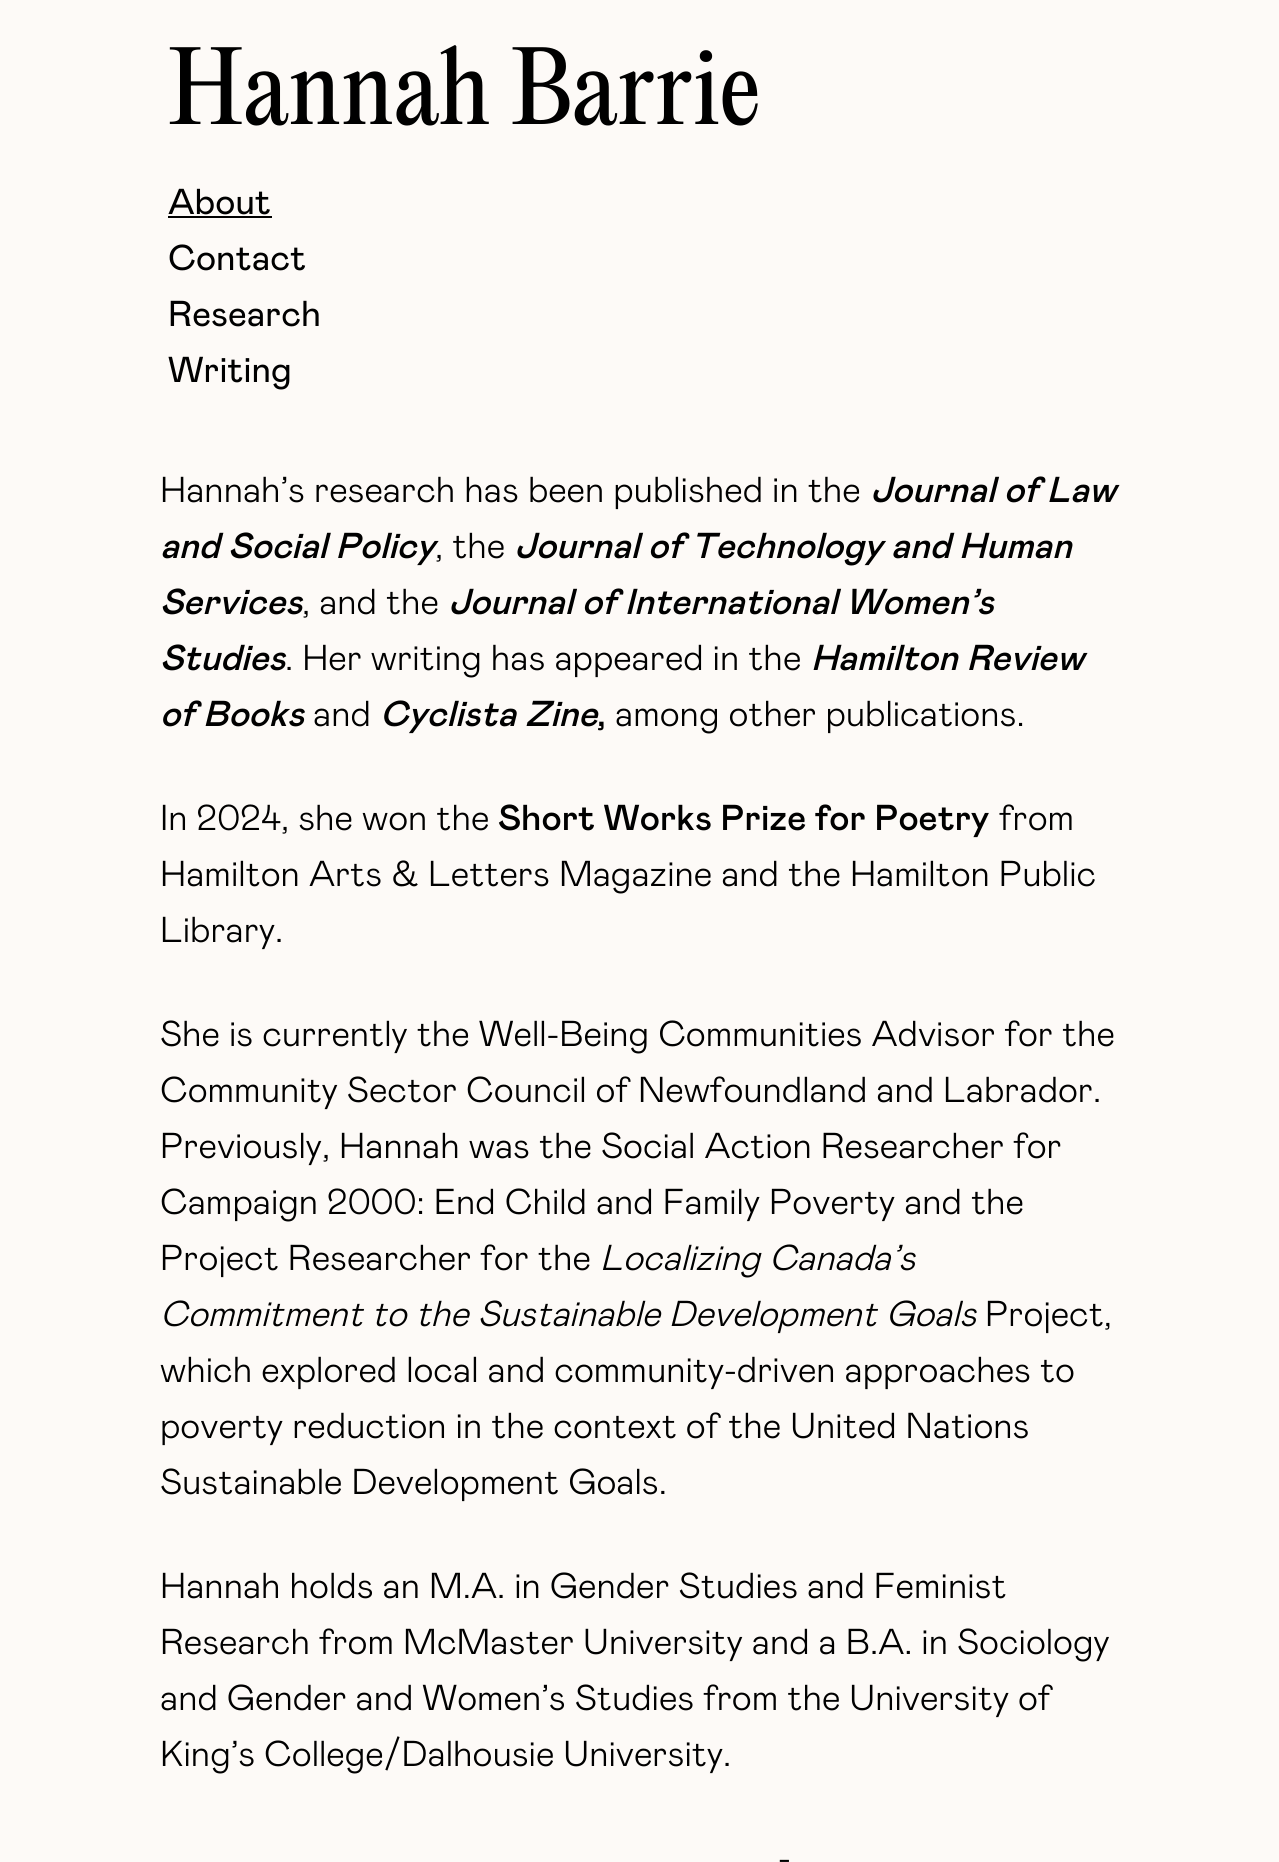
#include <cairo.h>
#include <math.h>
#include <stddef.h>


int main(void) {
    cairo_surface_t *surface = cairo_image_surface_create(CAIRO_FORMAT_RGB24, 1279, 1862);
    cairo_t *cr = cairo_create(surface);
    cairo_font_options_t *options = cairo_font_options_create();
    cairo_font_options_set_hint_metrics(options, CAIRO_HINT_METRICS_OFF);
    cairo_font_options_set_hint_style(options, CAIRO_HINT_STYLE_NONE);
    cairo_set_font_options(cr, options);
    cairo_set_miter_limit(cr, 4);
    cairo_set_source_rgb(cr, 0.992, 0.98, 0.965);
    cairo_paint(cr);
    cairo_select_font_face(cr, "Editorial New", CAIRO_FONT_SLANT_NORMAL, CAIRO_FONT_WEIGHT_NORMAL);
    cairo_set_font_size(cr, 96);
    cairo_set_source_rgb(cr, 0, 0, 0);
    cairo_move_to(cr, 168, 124);
    cairo_show_text(cr, "Hannah Barrie");
    cairo_select_font_face(cr, "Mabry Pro", CAIRO_FONT_SLANT_NORMAL, CAIRO_FONT_WEIGHT_NORMAL);
    cairo_set_font_size(cr, 36);
    cairo_move_to(cr, 168, 214);
    cairo_show_text(cr, "About");
    cairo_rectangle(cr, 168, 216, 104, 2);
    cairo_fill(cr);
    cairo_move_to(cr, 168, 270);
    cairo_show_text(cr, "Contact");
    cairo_move_to(cr, 168, 326);
    cairo_show_text(cr, "Research");
    cairo_move_to(cr, 168, 382);
    cairo_show_text(cr, "Writing");
    cairo_select_font_face(cr, "Mabry Pro Light", CAIRO_FONT_SLANT_NORMAL, CAIRO_FONT_WEIGHT_NORMAL);
    cairo_move_to(cr, 160, 502);
    cairo_show_text(cr, "Hannah’s research has been published in the");
    cairo_select_font_face(cr, "Mabry Pro Medium", CAIRO_FONT_SLANT_ITALIC, CAIRO_FONT_WEIGHT_NORMAL);
    cairo_move_to(cr, 870, 502);
    cairo_show_text(cr, "Journal of Law");
    cairo_move_to(cr, 160, 558);
    cairo_show_text(cr, "and Social Policy");
    cairo_select_font_face(cr, "Mabry Pro Light", CAIRO_FONT_SLANT_NORMAL, CAIRO_FONT_WEIGHT_NORMAL);
    cairo_move_to(cr, 435, 558);
    cairo_show_text(cr, ", the");
    cairo_select_font_face(cr, "Mabry Pro Medium", CAIRO_FONT_SLANT_ITALIC, CAIRO_FONT_WEIGHT_NORMAL);
    cairo_move_to(cr, 514, 558);
    cairo_show_text(cr, "Journal of Technology and Human");
    cairo_move_to(cr, 160, 614);
    cairo_show_text(cr, "Services");
    cairo_select_font_face(cr, "Mabry Pro Light", CAIRO_FONT_SLANT_NORMAL, CAIRO_FONT_WEIGHT_NORMAL);
    cairo_move_to(cr, 302, 614);
    cairo_show_text(cr, ", and the");
    cairo_select_font_face(cr, "Mabry Pro Medium", CAIRO_FONT_SLANT_ITALIC, CAIRO_FONT_WEIGHT_NORMAL);
    cairo_move_to(cr, 448, 614);
    cairo_show_text(cr, "Journal of International Women’s");
    cairo_move_to(cr, 160, 670);
    cairo_show_text(cr, "Studies");
    cairo_select_font_face(cr, "Mabry Pro Light", CAIRO_FONT_SLANT_NORMAL, CAIRO_FONT_WEIGHT_NORMAL);
    cairo_move_to(cr, 285, 670);
    cairo_show_text(cr, ". Her writing has appeared in the");
    cairo_select_font_face(cr, "Mabry Pro Medium", CAIRO_FONT_SLANT_ITALIC, CAIRO_FONT_WEIGHT_NORMAL);
    cairo_move_to(cr, 811, 670);
    cairo_show_text(cr, "Hamilton Review");
    cairo_move_to(cr, 160, 726);
    cairo_show_text(cr, "of Books");
    cairo_select_font_face(cr, "Mabry Pro Light", CAIRO_FONT_SLANT_NORMAL, CAIRO_FONT_WEIGHT_NORMAL);
    cairo_move_to(cr, 313, 726);
    cairo_show_text(cr, "and");
    cairo_select_font_face(cr, "Mabry Pro Medium", CAIRO_FONT_SLANT_ITALIC, CAIRO_FONT_WEIGHT_NORMAL);
    cairo_move_to(cr, 380, 726);
    cairo_show_text(cr, "Cyclista Zine");
    cairo_select_font_face(cr, "Mabry Pro Medium", CAIRO_FONT_SLANT_NORMAL, CAIRO_FONT_WEIGHT_NORMAL);
    cairo_move_to(cr, 597, 726);
    cairo_show_text(cr, ",");
    cairo_select_font_face(cr, "Mabry Pro Light", CAIRO_FONT_SLANT_NORMAL, CAIRO_FONT_WEIGHT_NORMAL);
    cairo_move_to(cr, 615, 726);
    cairo_show_text(cr, "among other publications.");
    cairo_move_to(cr, 160, 830);
    cairo_show_text(cr, "In 2024, she won the");
    cairo_select_font_face(cr, "Mabry Pro Medium", CAIRO_FONT_SLANT_NORMAL, CAIRO_FONT_WEIGHT_NORMAL);
    cairo_move_to(cr, 498, 830);
    cairo_show_text(cr, "Short Works Prize for Poetry");
    cairo_select_font_face(cr, "Mabry Pro Light", CAIRO_FONT_SLANT_NORMAL, CAIRO_FONT_WEIGHT_NORMAL);
    cairo_move_to(cr, 999, 830);
    cairo_show_text(cr, "from");
    cairo_move_to(cr, 160, 886);
    cairo_show_text(cr, "Hamilton Arts & Letters Magazine and the Hamilton Public");
    cairo_move_to(cr, 160, 942);
    cairo_show_text(cr, "Library.");
    cairo_move_to(cr, 160, 1046);
    cairo_show_text(cr, "She is currently the Well-Being Communities Advisor for the");
    cairo_move_to(cr, 160, 1102);
    cairo_show_text(cr, "Community Sector Council of Newfoundland and Labrador.");
    cairo_move_to(cr, 160, 1158);
    cairo_show_text(cr, "Previously, Hannah was the Social Action Researcher for");
    cairo_move_to(cr, 160, 1214);
    cairo_show_text(cr, "Campaign 2000: End Child and Family Poverty and the");
    cairo_move_to(cr, 160, 1270);
    cairo_show_text(cr, "Project Researcher for the");
    cairo_select_font_face(cr, "Mabry Pro Light", CAIRO_FONT_SLANT_ITALIC, CAIRO_FONT_WEIGHT_NORMAL);
    cairo_move_to(cr, 600, 1270);
    cairo_show_text(cr, "Localizing Canada’s");
    cairo_move_to(cr, 160, 1326);
    cairo_show_text(cr, "Commitment to the Sustainable Development Goals");
    cairo_select_font_face(cr, "Mabry Pro Light", CAIRO_FONT_SLANT_NORMAL, CAIRO_FONT_WEIGHT_NORMAL);
    cairo_move_to(cr, 985, 1326);
    cairo_show_text(cr, "Project,");
    cairo_move_to(cr, 160, 1382);
    cairo_show_text(cr, "which explored local and community-driven approaches to");
    cairo_move_to(cr, 160, 1438);
    cairo_show_text(cr, "poverty reduction in the context of the United Nations");
    cairo_move_to(cr, 160, 1494);
    cairo_show_text(cr, "Sustainable Development Goals.");
    cairo_move_to(cr, 160, 1598);
    cairo_show_text(cr, "Hannah holds an M.A. in Gender Studies and Feminist");
    cairo_move_to(cr, 160, 1654);
    cairo_show_text(cr, "Research from McMaster University and a B.A. in Sociology");
    cairo_move_to(cr, 160, 1710);
    cairo_show_text(cr, "and Gender and Women’s Studies from the University of");
    cairo_move_to(cr, 160, 1766);
    cairo_show_text(cr, "King’s College/Dalhousie University.");
    cairo_move_to(cr, 778, 1870);
    cairo_show_text(cr, "-");
    cairo_surface_write_to_png(surface, "page.png");
    cairo_font_options_destroy(options);
    cairo_destroy(cr);
    cairo_surface_destroy(surface);
    return 0;
}
